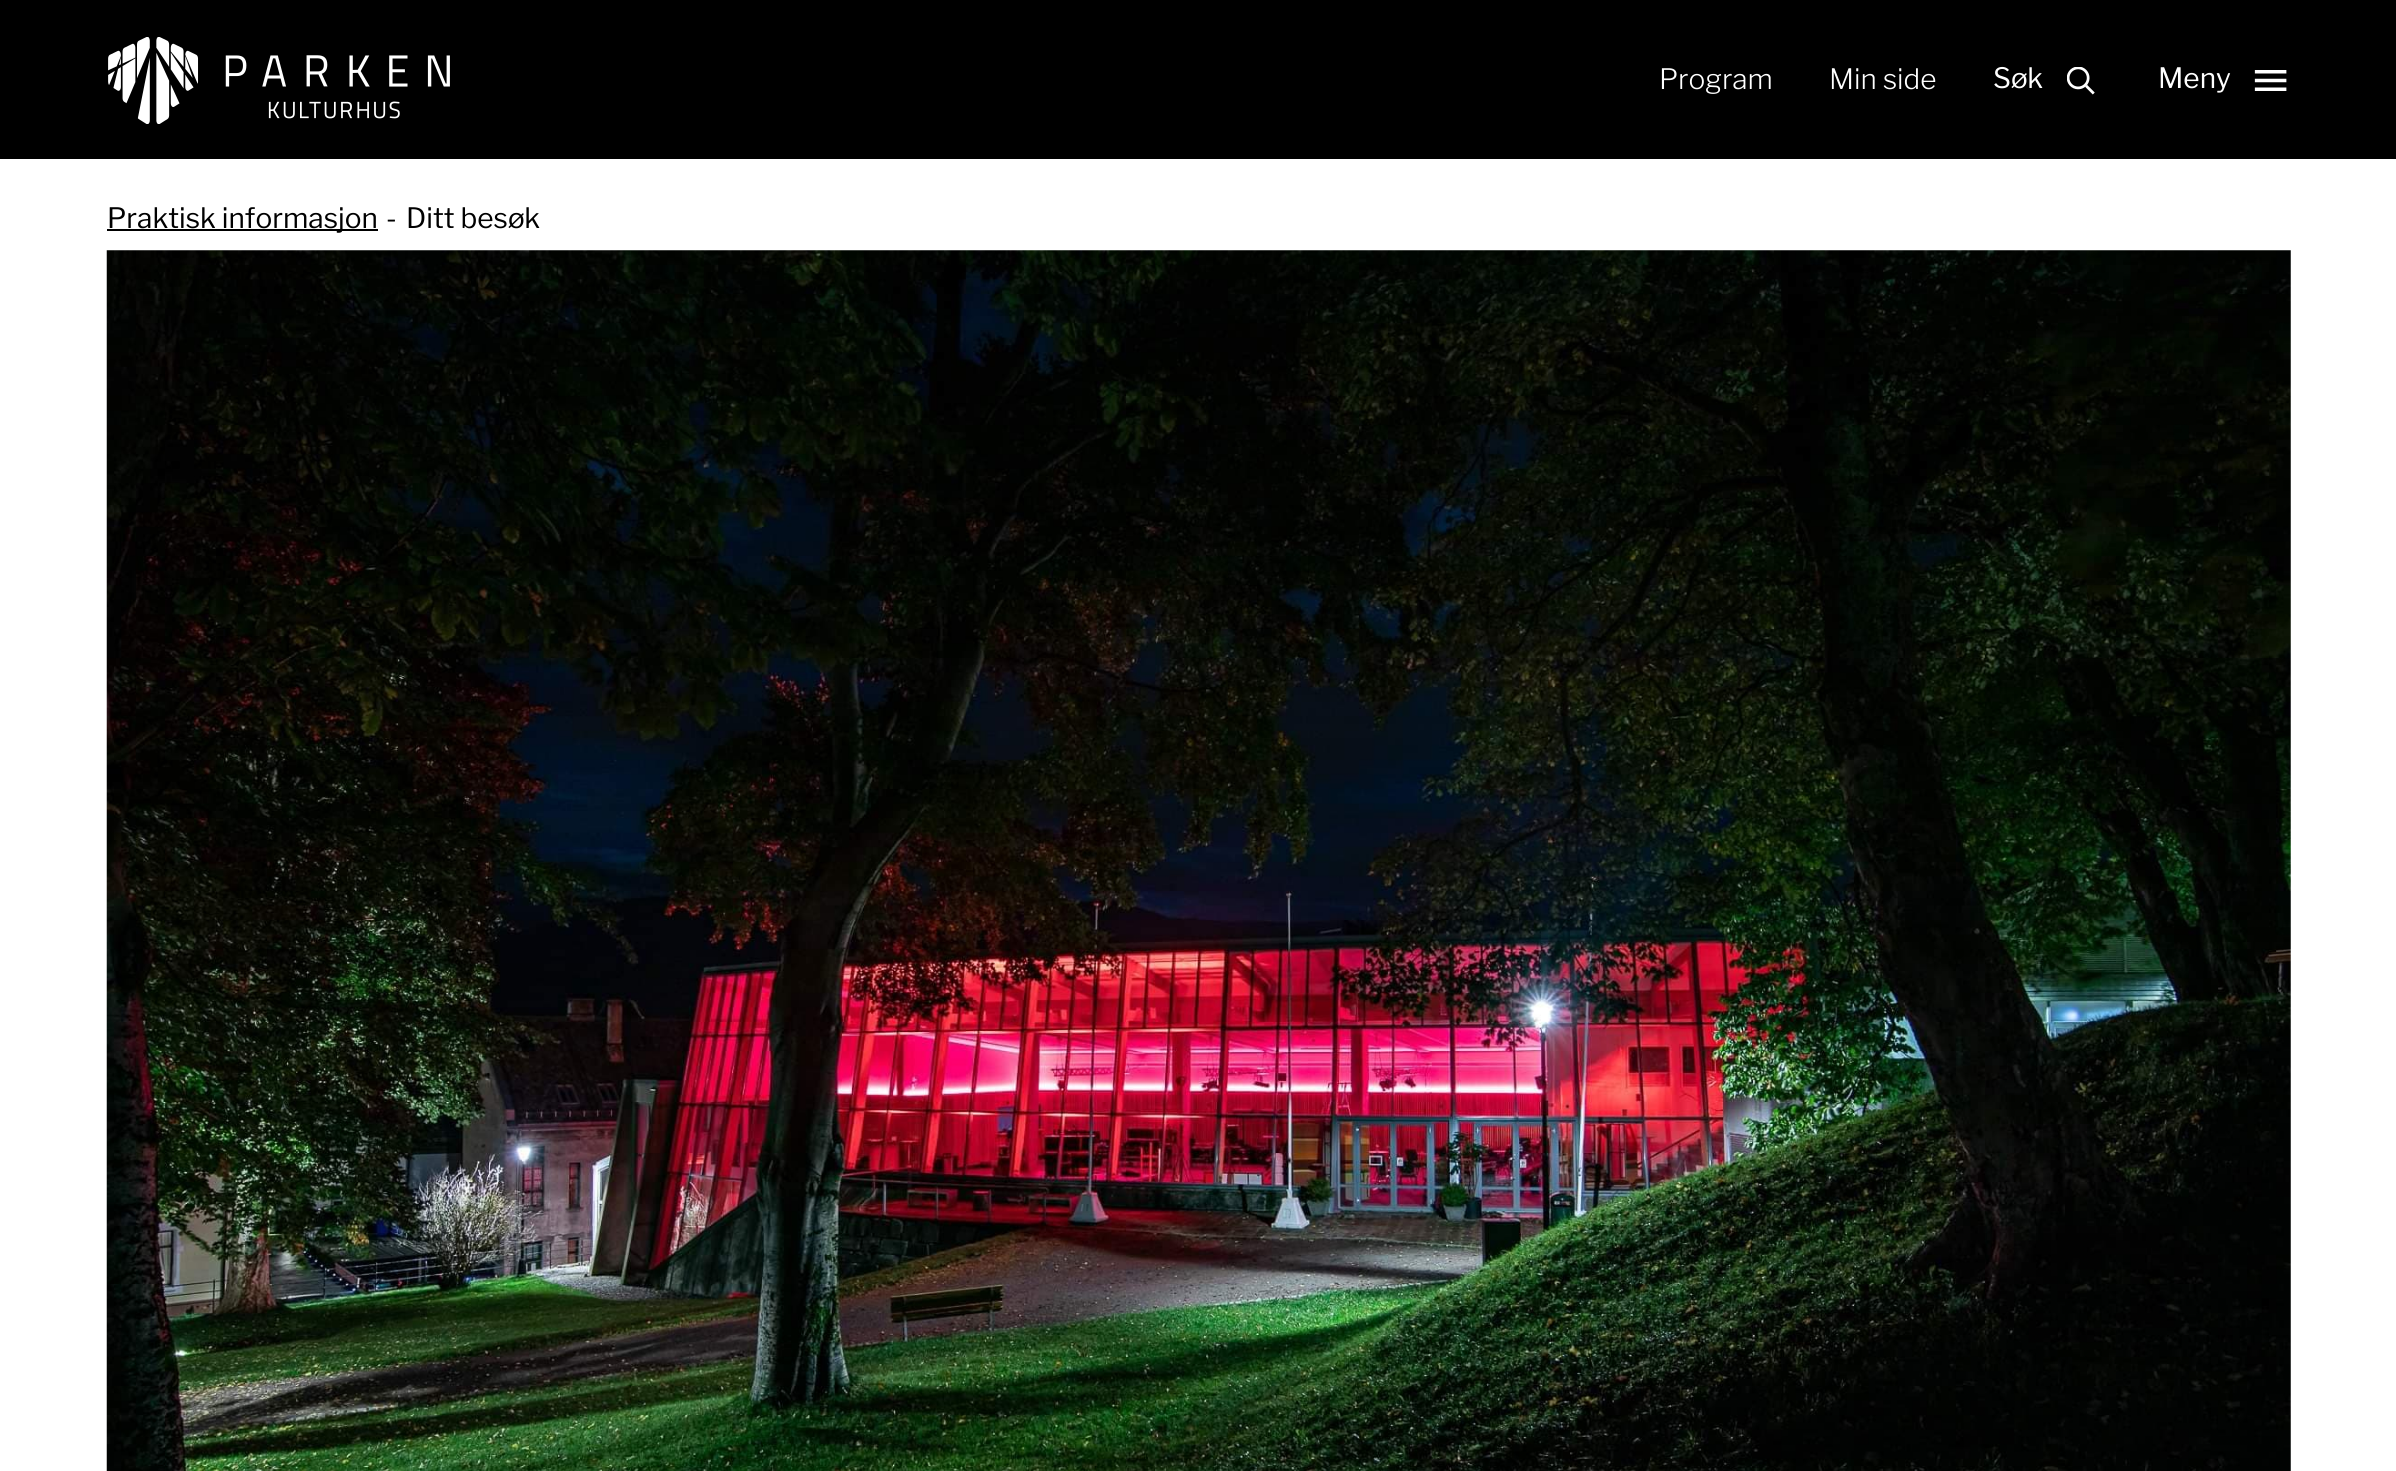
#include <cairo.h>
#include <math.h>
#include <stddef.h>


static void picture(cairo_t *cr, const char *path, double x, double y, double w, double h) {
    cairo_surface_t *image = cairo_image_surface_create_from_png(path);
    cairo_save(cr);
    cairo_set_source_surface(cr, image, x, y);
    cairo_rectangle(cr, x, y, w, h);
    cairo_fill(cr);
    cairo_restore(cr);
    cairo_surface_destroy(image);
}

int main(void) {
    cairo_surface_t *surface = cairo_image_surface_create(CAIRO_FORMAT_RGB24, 2396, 1471);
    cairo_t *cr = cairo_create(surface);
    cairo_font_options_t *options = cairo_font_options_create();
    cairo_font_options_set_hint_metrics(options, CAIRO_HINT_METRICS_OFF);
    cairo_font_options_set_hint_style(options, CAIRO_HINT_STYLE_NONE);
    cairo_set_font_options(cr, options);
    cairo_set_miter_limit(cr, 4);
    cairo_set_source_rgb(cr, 1, 1, 1);
    cairo_paint(cr);
    cairo_set_source_rgb(cr, 0, 0, 0);
    cairo_rectangle(cr, 0, 0, 2396, 159);
    cairo_fill(cr);
    picture(cr, "img1.png", 108, 37, 342, 87);
    cairo_select_font_face(cr, "Libre Franklin Light", CAIRO_FONT_SLANT_NORMAL, CAIRO_FONT_WEIGHT_NORMAL);
    cairo_set_font_size(cr, 28);
    cairo_set_source_rgb(cr, 1, 1, 1);
    cairo_move_to(cr, 1659, 89);
    cairo_show_text(cr, "Program");
    cairo_move_to(cr, 1829, 89);
    cairo_show_text(cr, "Min side");
    cairo_select_font_face(cr, "Libre Franklin", CAIRO_FONT_SLANT_NORMAL, CAIRO_FONT_WEIGHT_NORMAL);
    cairo_move_to(cr, 1993, 88);
    cairo_show_text(cr, "Søk");
    picture(cr, "img2.png", 2067, 67, 28, 28);
    cairo_move_to(cr, 2158, 88);
    cairo_show_text(cr, "Meny");
    picture(cr, "img3.png", 2254, 70, 33, 21);
    cairo_set_source_rgb(cr, 0, 0, 0);
    cairo_rectangle(cr, 107, 229, 271, 2);
    cairo_fill(cr);
    cairo_move_to(cr, 107, 228);
    cairo_show_text(cr, "Praktisk informasjon");
    cairo_move_to(cr, 386, 228);
    cairo_show_text(cr, "-");
    cairo_move_to(cr, 406, 228);
    cairo_show_text(cr, "Ditt besøk");
    picture(cr, "img4.png", 106, 250, 2185, 1221);
    cairo_surface_write_to_png(surface, "page.png");
    cairo_font_options_destroy(options);
    cairo_destroy(cr);
    cairo_surface_destroy(surface);
    return 0;
}
